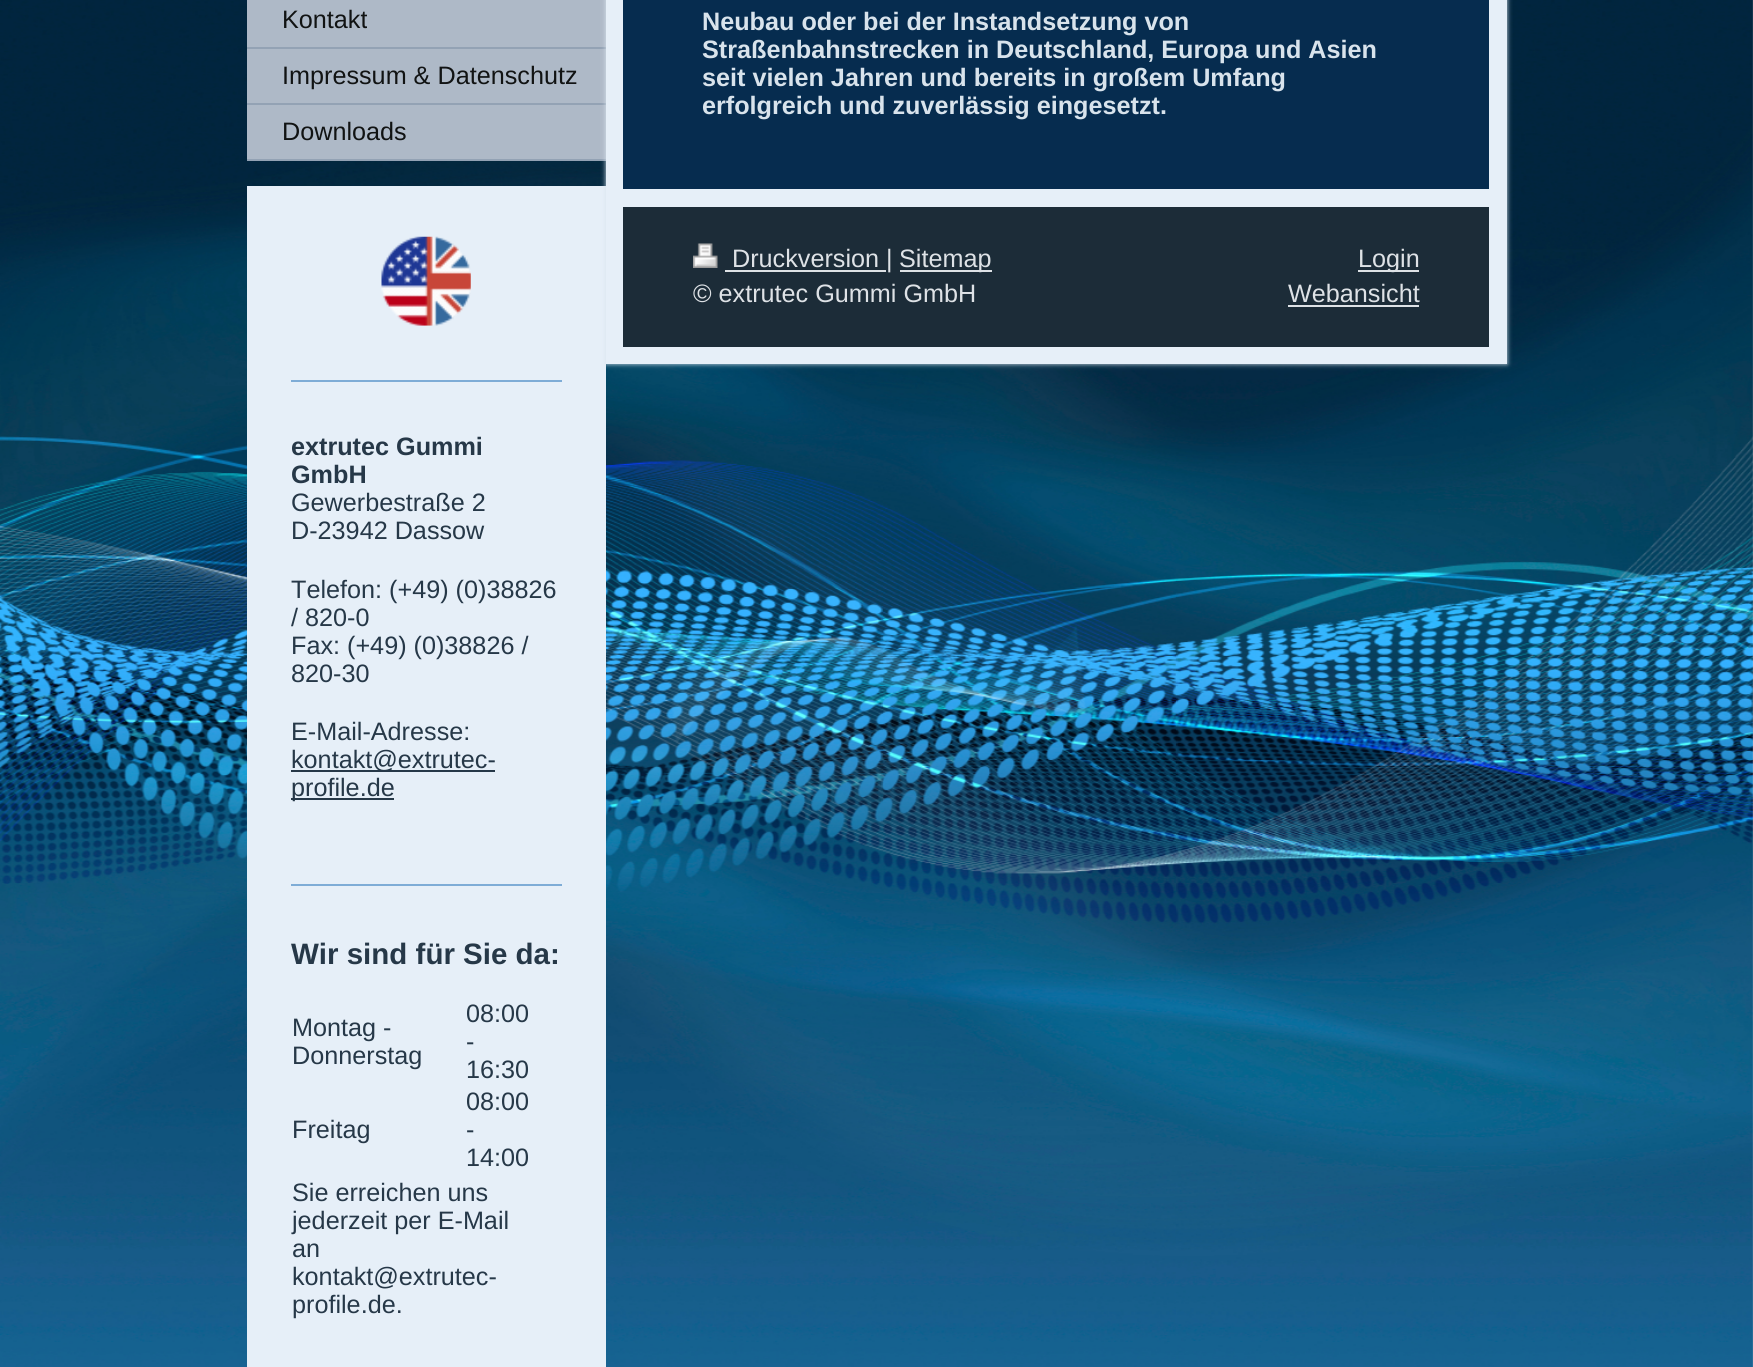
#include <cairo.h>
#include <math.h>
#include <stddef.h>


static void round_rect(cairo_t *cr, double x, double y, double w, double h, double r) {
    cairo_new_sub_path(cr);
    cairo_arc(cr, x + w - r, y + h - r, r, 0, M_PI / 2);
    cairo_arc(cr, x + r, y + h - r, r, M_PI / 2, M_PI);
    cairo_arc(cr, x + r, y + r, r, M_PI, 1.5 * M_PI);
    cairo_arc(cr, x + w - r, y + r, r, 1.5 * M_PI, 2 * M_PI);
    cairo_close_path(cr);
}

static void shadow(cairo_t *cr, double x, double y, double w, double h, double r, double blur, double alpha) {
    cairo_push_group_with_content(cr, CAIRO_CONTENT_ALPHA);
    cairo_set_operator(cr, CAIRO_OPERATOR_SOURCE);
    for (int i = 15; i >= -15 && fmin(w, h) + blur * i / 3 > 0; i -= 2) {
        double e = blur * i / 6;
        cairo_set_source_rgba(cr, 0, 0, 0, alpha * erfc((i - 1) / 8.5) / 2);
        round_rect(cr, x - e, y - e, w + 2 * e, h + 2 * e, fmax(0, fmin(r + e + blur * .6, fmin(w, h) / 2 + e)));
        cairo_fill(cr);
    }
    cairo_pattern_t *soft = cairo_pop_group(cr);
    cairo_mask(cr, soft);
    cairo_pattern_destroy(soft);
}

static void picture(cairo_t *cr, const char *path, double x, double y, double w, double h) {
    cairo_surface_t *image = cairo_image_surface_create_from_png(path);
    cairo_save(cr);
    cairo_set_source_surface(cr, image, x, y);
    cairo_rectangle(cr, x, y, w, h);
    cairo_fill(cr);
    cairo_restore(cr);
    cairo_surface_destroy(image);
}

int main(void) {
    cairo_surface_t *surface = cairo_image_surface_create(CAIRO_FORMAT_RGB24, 1753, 1367);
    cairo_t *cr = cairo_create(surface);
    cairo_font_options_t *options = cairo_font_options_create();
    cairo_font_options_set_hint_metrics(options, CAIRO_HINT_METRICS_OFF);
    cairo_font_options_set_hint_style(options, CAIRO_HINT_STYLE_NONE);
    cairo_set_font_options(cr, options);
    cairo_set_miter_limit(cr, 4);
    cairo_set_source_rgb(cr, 1, 1, 1);
    cairo_paint(cr);
    picture(cr, "img1.png", 0, 0, 1753, 1367);
    cairo_set_source_rgb(cr, 0.682, 0.725, 0.78);
    cairo_rectangle(cr, 247, 0, 359, 159);
    cairo_fill(cr);
    cairo_set_source_rgb(cr, 0.576, 0.635, 0.706);
    cairo_rectangle(cr, 247, 47, 359, 2);
    cairo_fill(cr);
    cairo_select_font_face(cr, "Liberation Sans", CAIRO_FONT_SLANT_NORMAL, CAIRO_FONT_WEIGHT_NORMAL);
    cairo_set_font_size(cr, 25.2);
    cairo_set_source_rgb(cr, 0.067, 0.075, 0.078);
    cairo_move_to(cr, 282, 28);
    cairo_show_text(cr, "Kontakt");
    cairo_set_source_rgb(cr, 0.576, 0.635, 0.706);
    cairo_rectangle(cr, 247, 103, 359, 2);
    cairo_fill(cr);
    cairo_set_source_rgb(cr, 0.067, 0.075, 0.078);
    cairo_move_to(cr, 282, 84);
    cairo_show_text(cr, "Impressum & Datenschutz");
    cairo_set_source_rgb(cr, 0.576, 0.635, 0.706);
    cairo_rectangle(cr, 247, 159, 359, 2);
    cairo_fill(cr);
    cairo_set_source_rgb(cr, 0.067, 0.075, 0.078);
    cairo_move_to(cr, 282, 140);
    cairo_show_text(cr, "Downloads");
    cairo_set_source_rgb(cr, 0.902, 0.937, 0.969);
    cairo_rectangle(cr, 247, 186, 359, 1181);
    cairo_fill(cr);
    picture(cr, "img2.png", 381, 236, 90, 90);
    cairo_set_source_rgb(cr, 0.494, 0.675, 0.839);
    cairo_rectangle(cr, 291, 380, 271, 2);
    cairo_fill(cr);
    cairo_select_font_face(cr, "Liberation Sans", CAIRO_FONT_SLANT_NORMAL, CAIRO_FONT_WEIGHT_BOLD);
    cairo_set_source_rgb(cr, 0.149, 0.22, 0.282);
    cairo_move_to(cr, 291, 455);
    cairo_show_text(cr, "extrutec Gummi");
    cairo_move_to(cr, 291, 483);
    cairo_show_text(cr, "GmbH");
    cairo_select_font_face(cr, "Liberation Sans", CAIRO_FONT_SLANT_NORMAL, CAIRO_FONT_WEIGHT_NORMAL);
    cairo_move_to(cr, 291, 511);
    cairo_show_text(cr, "Gewerbestraße 2");
    cairo_move_to(cr, 291, 539);
    cairo_show_text(cr, "D-23942 Dassow");
    cairo_move_to(cr, 291, 598);
    cairo_show_text(cr, "Telefon: (+49) (0)38826");
    cairo_move_to(cr, 291, 626);
    cairo_show_text(cr, "/ 820-0");
    cairo_move_to(cr, 291, 654);
    cairo_show_text(cr, "Fax: (+49) (0)38826 /");
    cairo_move_to(cr, 291, 682);
    cairo_show_text(cr, "820-30");
    cairo_move_to(cr, 291, 740);
    cairo_show_text(cr, "E-Mail-Adresse:");
    cairo_rectangle(cr, 291, 770, 204, 2);
    cairo_fill(cr);
    cairo_move_to(cr, 291, 768);
    cairo_show_text(cr, "kontakt@extrutec-");
    cairo_rectangle(cr, 291, 798, 103, 2);
    cairo_fill(cr);
    cairo_move_to(cr, 291, 796);
    cairo_show_text(cr, "profile.de");
    cairo_set_source_rgb(cr, 0.494, 0.675, 0.839);
    cairo_rectangle(cr, 291, 884, 271, 2);
    cairo_fill(cr);
    cairo_select_font_face(cr, "Liberation Sans", CAIRO_FONT_SLANT_NORMAL, CAIRO_FONT_WEIGHT_BOLD);
    cairo_set_font_size(cr, 29.5);
    cairo_set_source_rgb(cr, 0.149, 0.22, 0.282);
    cairo_move_to(cr, 291, 964);
    cairo_show_text(cr, "Wir sind für Sie da:");
    cairo_select_font_face(cr, "Liberation Sans", CAIRO_FONT_SLANT_NORMAL, CAIRO_FONT_WEIGHT_NORMAL);
    cairo_set_font_size(cr, 25.2);
    cairo_move_to(cr, 292, 1036);
    cairo_show_text(cr, "Montag -");
    cairo_move_to(cr, 292, 1064);
    cairo_show_text(cr, "Donnerstag");
    cairo_move_to(cr, 466, 1022);
    cairo_show_text(cr, "08:00");
    cairo_move_to(cr, 466, 1050);
    cairo_show_text(cr, "-");
    cairo_move_to(cr, 466, 1078);
    cairo_show_text(cr, "16:30");
    cairo_move_to(cr, 292, 1138);
    cairo_show_text(cr, "Freitag");
    cairo_move_to(cr, 466, 1110);
    cairo_show_text(cr, "08:00");
    cairo_move_to(cr, 466, 1138);
    cairo_show_text(cr, "-");
    cairo_move_to(cr, 466, 1166);
    cairo_show_text(cr, "14:00");
    cairo_move_to(cr, 292, 1201);
    cairo_show_text(cr, "Sie erreichen uns");
    cairo_move_to(cr, 292, 1229);
    cairo_show_text(cr, "jederzeit per E-Mail");
    cairo_move_to(cr, 292, 1257);
    cairo_show_text(cr, "an");
    cairo_move_to(cr, 292, 1285);
    cairo_show_text(cr, "kontakt@extrutec-");
    cairo_move_to(cr, 292, 1313);
    cairo_show_text(cr, "profile.de.");
    cairo_set_source_rgb(cr, 0.847, 0.89, 0.925);
    shadow(cr, 606, -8, 901, 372, 0, 2.5, 1);
    cairo_set_source_rgb(cr, 0.024, 0.173, 0.31);
    cairo_rectangle(cr, 623, 0, 866, 189);
    cairo_fill(cr);
    cairo_set_source_rgb(cr, 0.902, 0.937, 0.969);
    cairo_rectangle(cr, 1489, 0, 18, 189);
    cairo_fill(cr);
    cairo_rectangle(cr, 623, 189, 884, 18);
    cairo_fill(cr);
    cairo_rectangle(cr, 606, 0, 17, 364);
    cairo_fill(cr);
    cairo_select_font_face(cr, "Liberation Sans", CAIRO_FONT_SLANT_NORMAL, CAIRO_FONT_WEIGHT_BOLD);
    cairo_set_source_rgb(cr, 0.847, 0.89, 0.925);
    cairo_move_to(cr, 702, 30);
    cairo_show_text(cr, "Neubau oder bei der Instandsetzung von");
    cairo_move_to(cr, 702, 58);
    cairo_show_text(cr, "Straßenbahnstrecken in Deutschland, Europa und Asien");
    cairo_move_to(cr, 702, 86);
    cairo_show_text(cr, "seit vielen Jahren und bereits in großem Umfang");
    cairo_move_to(cr, 702, 114);
    cairo_show_text(cr, "erfolgreich und zuverlässig eingesetzt.");
    cairo_set_source_rgb(cr, 0.11, 0.173, 0.22);
    cairo_rectangle(cr, 623, 207, 866, 140);
    cairo_fill(cr);
    cairo_set_source_rgb(cr, 0.902, 0.937, 0.969);
    cairo_rectangle(cr, 1489, 207, 18, 140);
    cairo_fill(cr);
    cairo_rectangle(cr, 623, 347, 884, 17);
    cairo_fill(cr);
    picture(cr, "img3.png", 693, 243, 25, 25);
    cairo_set_source_rgb(cr, 0.871, 0.886, 0.902);
    cairo_rectangle(cr, 725, 270, 161, 2);
    cairo_fill(cr);
    cairo_select_font_face(cr, "Liberation Sans", CAIRO_FONT_SLANT_NORMAL, CAIRO_FONT_WEIGHT_NORMAL);
    cairo_move_to(cr, 732, 267);
    cairo_show_text(cr, "Druckversion |");
    cairo_rectangle(cr, 900, 270, 92, 2);
    cairo_fill(cr);
    cairo_move_to(cr, 899, 267);
    cairo_show_text(cr, "Sitemap");
    cairo_move_to(cr, 693, 302);
    cairo_show_text(cr, "© extrutec Gummi GmbH");
    cairo_rectangle(cr, 1358, 270, 61, 2);
    cairo_fill(cr);
    cairo_move_to(cr, 1358, 267);
    cairo_show_text(cr, "Login");
    cairo_move_to(cr, 1288, 302);
    cairo_show_text(cr, "Webansicht");
    cairo_rectangle(cr, 1288, 305, 131, 2);
    cairo_fill(cr);
    cairo_surface_write_to_png(surface, "page.png");
    cairo_font_options_destroy(options);
    cairo_destroy(cr);
    cairo_surface_destroy(surface);
    return 0;
}
